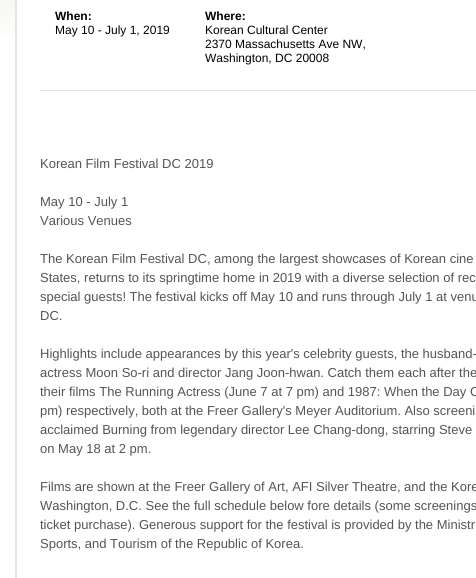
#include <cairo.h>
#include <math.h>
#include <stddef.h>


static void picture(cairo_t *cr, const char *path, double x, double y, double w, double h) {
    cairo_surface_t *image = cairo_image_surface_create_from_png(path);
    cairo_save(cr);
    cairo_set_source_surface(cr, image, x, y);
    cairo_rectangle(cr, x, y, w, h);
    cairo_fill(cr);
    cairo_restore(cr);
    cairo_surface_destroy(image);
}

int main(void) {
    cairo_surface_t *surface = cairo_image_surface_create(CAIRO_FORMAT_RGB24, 476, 578);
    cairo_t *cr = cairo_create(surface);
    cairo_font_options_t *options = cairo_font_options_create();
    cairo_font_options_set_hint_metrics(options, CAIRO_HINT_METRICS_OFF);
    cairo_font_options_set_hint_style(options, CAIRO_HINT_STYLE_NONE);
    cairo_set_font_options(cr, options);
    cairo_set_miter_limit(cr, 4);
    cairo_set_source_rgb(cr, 1, 1, 1);
    cairo_paint(cr);
    picture(cr, "img1.png", 0, 0, 15, 34);
    picture(cr, "img2.png", 15, 0, 461, 578);
    cairo_select_font_face(cr, "Liberation Sans", CAIRO_FONT_SLANT_NORMAL, CAIRO_FONT_WEIGHT_BOLD);
    cairo_set_font_size(cr, 12);
    cairo_set_source_rgb(cr, 0, 0, 0);
    cairo_move_to(cr, 55, 20);
    cairo_show_text(cr, "When:");
    cairo_select_font_face(cr, "Liberation Sans", CAIRO_FONT_SLANT_NORMAL, CAIRO_FONT_WEIGHT_NORMAL);
    cairo_move_to(cr, 55, 34);
    cairo_show_text(cr, "May 10 - July 1, 2019");
    cairo_select_font_face(cr, "Liberation Sans", CAIRO_FONT_SLANT_NORMAL, CAIRO_FONT_WEIGHT_BOLD);
    cairo_move_to(cr, 205, 20);
    cairo_show_text(cr, "Where:");
    cairo_select_font_face(cr, "Liberation Sans", CAIRO_FONT_SLANT_NORMAL, CAIRO_FONT_WEIGHT_NORMAL);
    cairo_move_to(cr, 205, 34);
    cairo_show_text(cr, "Korean Cultural Center");
    cairo_move_to(cr, 205, 48);
    cairo_show_text(cr, "2370 Massachusetts Ave NW,");
    cairo_move_to(cr, 205, 62);
    cairo_show_text(cr, "Washington, DC 20008");
    cairo_set_source_rgb(cr, 0.898, 0.898, 0.855);
    cairo_rectangle(cr, 40, 90, 436, 1);
    cairo_fill(cr);
    cairo_set_font_size(cr, 13);
    cairo_set_source_rgb(cr, 0.329, 0.329, 0.329);
    cairo_move_to(cr, 40, 168);
    cairo_show_text(cr, "Korean Film Festival DC 2019");
    cairo_move_to(cr, 40, 206);
    cairo_show_text(cr, "May 10 - July 1");
    cairo_move_to(cr, 40, 225);
    cairo_show_text(cr, "Various Venues");
    cairo_move_to(cr, 40, 263);
    cairo_show_text(cr, "The Korean Film Festival DC, among the largest showcases of Korean cine");
    cairo_move_to(cr, 40, 282);
    cairo_show_text(cr, "States, returns to its springtime home in 2019 with a diverse selection of rec");
    cairo_move_to(cr, 40, 301);
    cairo_show_text(cr, "special guests! The festival kicks off May 10 and runs through July 1 at venu");
    cairo_move_to(cr, 40, 320);
    cairo_show_text(cr, "DC.");
    cairo_move_to(cr, 40, 358);
    cairo_show_text(cr, "Highlights include appearances by this year's celebrity guests, the husband-");
    cairo_move_to(cr, 40, 377);
    cairo_show_text(cr, "actress Moon So-ri and director Jang Joon-hwan. Catch them each after the");
    cairo_move_to(cr, 40, 396);
    cairo_show_text(cr, "their films The Running Actress (June 7 at 7 pm) and 1987: When the Day C");
    cairo_move_to(cr, 40, 415);
    cairo_show_text(cr, "pm) respectively, both at the Freer Gallery's Meyer Auditorium. Also screeni");
    cairo_move_to(cr, 40, 434);
    cairo_show_text(cr, "acclaimed Burning from legendary director Lee Chang-dong, starring Steve");
    cairo_move_to(cr, 40, 453);
    cairo_show_text(cr, "on May 18 at 2 pm.");
    cairo_move_to(cr, 40, 491);
    cairo_show_text(cr, "Films are shown at the Freer Gallery of Art, AFI Silver Theatre, and the Kore");
    cairo_move_to(cr, 40, 510);
    cairo_show_text(cr, "Washington, D.C. See the full schedule below fore details (some screenings");
    cairo_move_to(cr, 40, 529);
    cairo_show_text(cr, "ticket purchase). Generous support for the festival is provided by the Ministr");
    cairo_move_to(cr, 40, 548);
    cairo_show_text(cr, "Sports, and Tourism of the Republic of Korea.");
    cairo_surface_write_to_png(surface, "page.png");
    cairo_font_options_destroy(options);
    cairo_destroy(cr);
    cairo_surface_destroy(surface);
    return 0;
}
